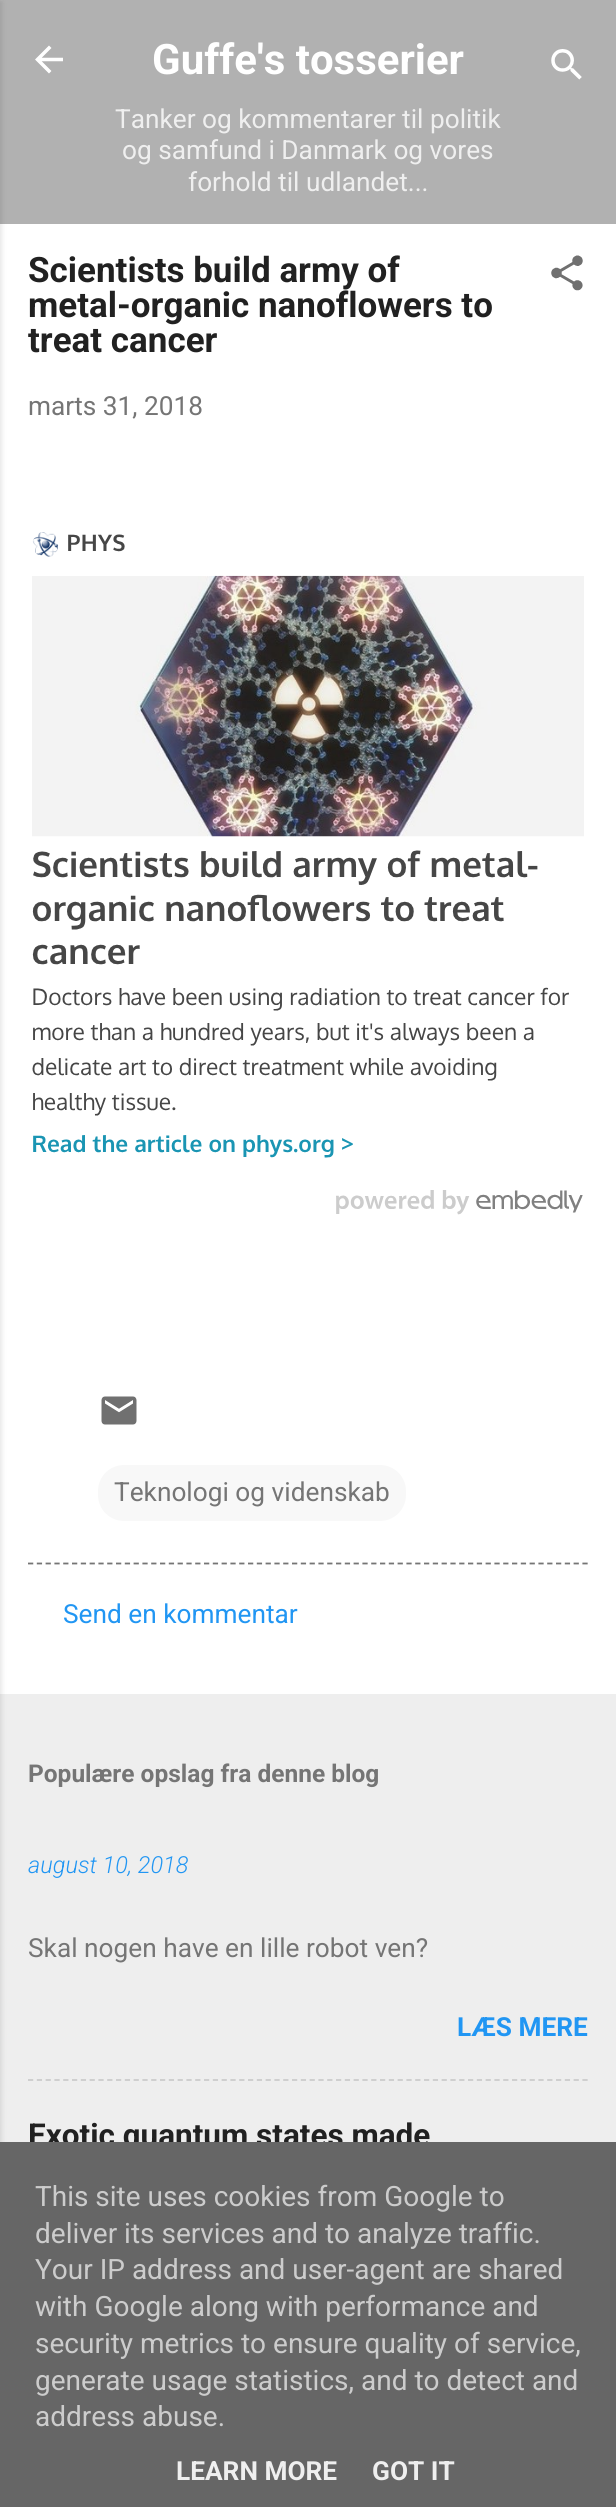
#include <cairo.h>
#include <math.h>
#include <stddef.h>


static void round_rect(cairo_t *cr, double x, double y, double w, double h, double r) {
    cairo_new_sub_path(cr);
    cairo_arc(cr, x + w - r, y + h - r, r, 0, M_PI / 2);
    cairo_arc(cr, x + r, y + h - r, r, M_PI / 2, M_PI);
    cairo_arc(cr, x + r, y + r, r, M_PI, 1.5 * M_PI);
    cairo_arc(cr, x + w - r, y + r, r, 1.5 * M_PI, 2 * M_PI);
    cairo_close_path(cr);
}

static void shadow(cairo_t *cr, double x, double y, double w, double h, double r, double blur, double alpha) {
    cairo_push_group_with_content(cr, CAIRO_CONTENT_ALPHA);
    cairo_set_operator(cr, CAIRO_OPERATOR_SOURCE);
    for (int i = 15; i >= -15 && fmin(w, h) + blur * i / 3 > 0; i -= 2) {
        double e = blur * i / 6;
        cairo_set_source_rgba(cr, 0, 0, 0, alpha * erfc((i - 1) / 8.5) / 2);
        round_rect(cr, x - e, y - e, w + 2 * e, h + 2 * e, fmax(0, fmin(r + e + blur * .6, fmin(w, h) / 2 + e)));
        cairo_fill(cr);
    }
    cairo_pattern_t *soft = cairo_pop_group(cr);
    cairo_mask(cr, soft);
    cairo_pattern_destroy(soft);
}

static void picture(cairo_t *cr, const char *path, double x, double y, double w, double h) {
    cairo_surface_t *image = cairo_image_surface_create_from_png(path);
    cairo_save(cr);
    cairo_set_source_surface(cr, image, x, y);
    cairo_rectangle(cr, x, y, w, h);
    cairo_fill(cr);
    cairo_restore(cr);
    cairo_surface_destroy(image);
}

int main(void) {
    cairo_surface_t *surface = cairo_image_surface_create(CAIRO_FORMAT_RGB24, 616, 2507);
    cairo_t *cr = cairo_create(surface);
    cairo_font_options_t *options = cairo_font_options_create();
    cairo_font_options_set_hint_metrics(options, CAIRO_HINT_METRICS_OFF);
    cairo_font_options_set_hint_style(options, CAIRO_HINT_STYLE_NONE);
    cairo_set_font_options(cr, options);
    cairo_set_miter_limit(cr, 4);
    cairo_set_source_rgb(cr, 0.933, 0.933, 0.933);
    cairo_paint(cr);
    cairo_set_source_rgb(cr, 0.694, 0.694, 0.694);
    cairo_rectangle(cr, 0, 0, 616, 224);
    cairo_fill(cr);
    cairo_set_source_rgb(cr, 1, 1, 1);
    cairo_rectangle(cr, 0, 224, 616, 1470);
    cairo_fill(cr);
    cairo_set_source_rgb(cr, 0, 0, 0);
    shadow(cr, -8, 2, 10, 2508, 0, 2.5, 0.1);
    picture(cr, "img1.png", 35, 45, 28, 29);
    cairo_select_font_face(cr, "Roboto", CAIRO_FONT_SLANT_NORMAL, CAIRO_FONT_WEIGHT_BOLD);
    cairo_set_font_size(cr, 42);
    cairo_set_source_rgb(cr, 1, 1, 1);
    cairo_move_to(cr, 152, 74);
    cairo_show_text(cr, "Guffe's tosserier");
    cairo_select_font_face(cr, "Roboto", CAIRO_FONT_SLANT_NORMAL, CAIRO_FONT_WEIGHT_NORMAL);
    cairo_set_font_size(cr, 26.25);
    cairo_set_source_rgb(cr, 0.937, 0.937, 0.937);
    cairo_move_to(cr, 115, 128);
    cairo_show_text(cr, "Tanker og kommentarer til politik");
    cairo_move_to(cr, 122, 159);
    cairo_show_text(cr, "og samfund i Danmark og vores");
    cairo_move_to(cr, 188, 191);
    cairo_show_text(cr, "forhold til udlandet...");
    picture(cr, "img2.png", 551, 49, 31, 31);
    cairo_select_font_face(cr, "Roboto", CAIRO_FONT_SLANT_NORMAL, CAIRO_FONT_WEIGHT_BOLD);
    cairo_set_font_size(cr, 35);
    cairo_set_source_rgb(cr, 0.129, 0.129, 0.129);
    cairo_move_to(cr, 28, 282);
    cairo_show_text(cr, "Scientists build army of");
    cairo_move_to(cr, 28, 317);
    cairo_show_text(cr, "metal-organic nanoflowers to");
    cairo_move_to(cr, 28, 352);
    cairo_show_text(cr, "treat cancer");
    picture(cr, "img3.png", 551, 255, 32, 36);
    cairo_select_font_face(cr, "Roboto", CAIRO_FONT_SLANT_NORMAL, CAIRO_FONT_WEIGHT_NORMAL);
    cairo_set_font_size(cr, 26.25);
    cairo_set_source_rgb(cr, 0.459, 0.459, 0.459);
    cairo_move_to(cr, 28, 415);
    cairo_show_text(cr, "marts 31, 2018");
    picture(cr, "img4.png", 32, 532, 552, 683);
    picture(cr, "img5.png", 101, 1396, 36, 29);
    cairo_set_source_rgb(cr, 0.969, 0.969, 0.969);
    round_rect(cr, 98, 1465, 308, 56, 26);
    cairo_fill(cr);
    cairo_set_source_rgb(cr, 0.459, 0.459, 0.459);
    cairo_move_to(cr, 114, 1501);
    cairo_show_text(cr, "Teknologi og videnskab");
    cairo_new_path(cr);
    cairo_move_to(cr, 28, 1563.5);
    cairo_line_to(cr, 588, 1563.5);
    cairo_set_line_width(cr, 1.8);
    cairo_set_dash(cr, (double[]){5.25, 3.55}, 2, 0);
    cairo_stroke(cr);
    cairo_set_source_rgb(cr, 0.129, 0.588, 0.953);
    cairo_move_to(cr, 63, 1623);
    cairo_show_text(cr, "Send en kommentar");
    cairo_select_font_face(cr, "Roboto", CAIRO_FONT_SLANT_NORMAL, CAIRO_FONT_WEIGHT_BOLD);
    cairo_set_font_size(cr, 24.5);
    cairo_set_source_rgb(cr, 0.459, 0.459, 0.459);
    cairo_move_to(cr, 28, 1782);
    cairo_show_text(cr, "Populære opslag fra denne blog");
    cairo_select_font_face(cr, "Roboto Light", CAIRO_FONT_SLANT_ITALIC, CAIRO_FONT_WEIGHT_NORMAL);
    cairo_set_font_size(cr, 23.5);
    cairo_set_source_rgb(cr, 0.129, 0.588, 0.953);
    cairo_move_to(cr, 28, 1873);
    cairo_show_text(cr, "august 10, 2018");
    cairo_select_font_face(cr, "Roboto", CAIRO_FONT_SLANT_NORMAL, CAIRO_FONT_WEIGHT_NORMAL);
    cairo_set_font_size(cr, 26.25);
    cairo_set_source_rgb(cr, 0.459, 0.459, 0.459);
    cairo_move_to(cr, 28, 1957);
    cairo_show_text(cr, "Skal nogen have en lille robot ven?");
    cairo_select_font_face(cr, "Roboto", CAIRO_FONT_SLANT_NORMAL, CAIRO_FONT_WEIGHT_BOLD);
    cairo_set_source_rgb(cr, 0.129, 0.588, 0.953);
    cairo_move_to(cr, 457, 2036);
    cairo_show_text(cr, "LÆS MERE");
    cairo_new_path(cr);
    cairo_move_to(cr, 28, 2080);
    cairo_line_to(cr, 588, 2080);
    cairo_set_source_rgb(cr, 0.8, 0.8, 0.8);
    cairo_stroke(cr);
    cairo_set_font_size(cr, 31.5);
    cairo_set_source_rgb(cr, 0.129, 0.129, 0.129);
    cairo_move_to(cr, 28, 2146);
    cairo_show_text(cr, "Exotic quantum states made");
    cairo_set_source_rgb(cr, 0.4, 0.4, 0.4);
    cairo_rectangle(cr, 0, 2142, 616, 365);
    cairo_fill(cr);
    cairo_select_font_face(cr, "Roboto", CAIRO_FONT_SLANT_NORMAL, CAIRO_FONT_WEIGHT_NORMAL);
    cairo_set_font_size(cr, 28);
    cairo_set_source_rgb(cr, 0.8, 0.8, 0.8);
    cairo_move_to(cr, 35, 2206);
    cairo_show_text(cr, "This site uses cookies from Google to");
    cairo_move_to(cr, 35, 2243);
    cairo_show_text(cr, "deliver its services and to analyze traffic.");
    cairo_move_to(cr, 35, 2279);
    cairo_show_text(cr, "Your IP address and user-agent are shared");
    cairo_move_to(cr, 35, 2316);
    cairo_show_text(cr, "with Google along with performance and");
    cairo_move_to(cr, 35, 2353);
    cairo_show_text(cr, "security metrics to ensure quality of service,");
    cairo_move_to(cr, 35, 2390);
    cairo_show_text(cr, "generate usage statistics, and to detect and");
    cairo_move_to(cr, 35, 2426);
    cairo_show_text(cr, "address abuse.");
    cairo_select_font_face(cr, "Roboto", CAIRO_FONT_SLANT_NORMAL, CAIRO_FONT_WEIGHT_BOLD);
    cairo_set_font_size(cr, 26.25);
    cairo_set_source_rgb(cr, 0.937, 0.937, 0.937);
    cairo_move_to(cr, 176, 2480);
    cairo_show_text(cr, "LEARN MORE");
    cairo_move_to(cr, 372, 2480);
    cairo_show_text(cr, "GOT IT");
    cairo_surface_write_to_png(surface, "page.png");
    cairo_font_options_destroy(options);
    cairo_destroy(cr);
    cairo_surface_destroy(surface);
    return 0;
}
